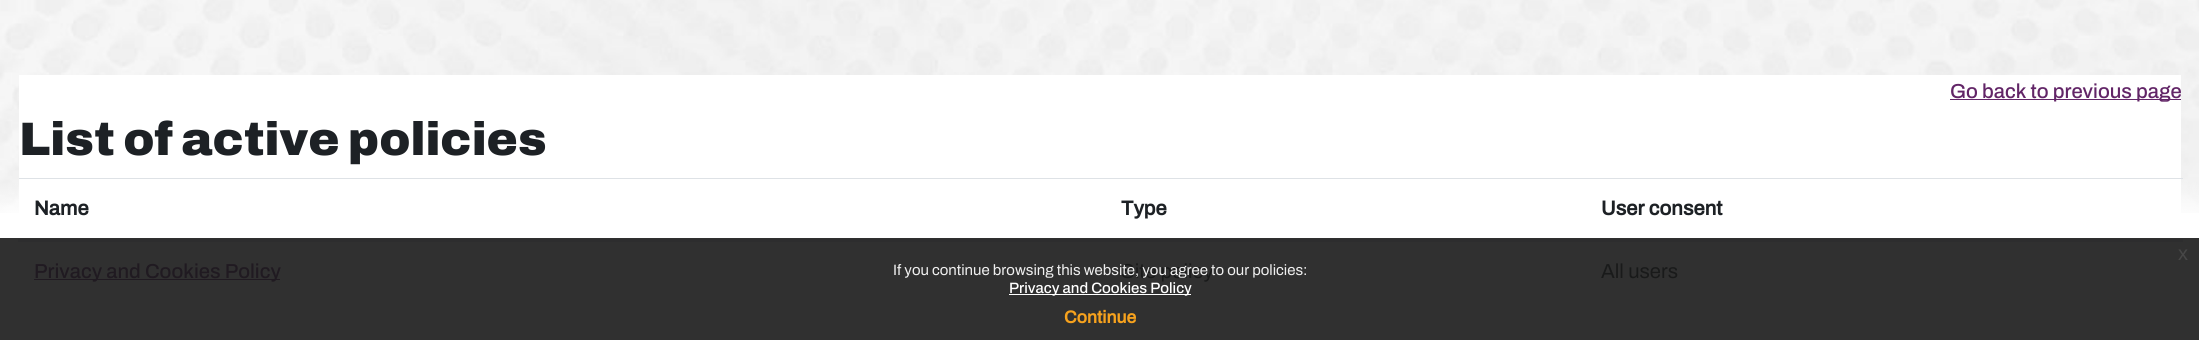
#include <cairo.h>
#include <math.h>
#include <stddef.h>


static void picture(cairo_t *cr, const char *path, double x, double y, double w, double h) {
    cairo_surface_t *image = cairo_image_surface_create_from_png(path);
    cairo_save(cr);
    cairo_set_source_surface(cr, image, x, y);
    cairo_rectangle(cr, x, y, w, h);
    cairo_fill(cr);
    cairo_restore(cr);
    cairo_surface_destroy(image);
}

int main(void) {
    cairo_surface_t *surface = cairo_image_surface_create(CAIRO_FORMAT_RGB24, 2199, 340);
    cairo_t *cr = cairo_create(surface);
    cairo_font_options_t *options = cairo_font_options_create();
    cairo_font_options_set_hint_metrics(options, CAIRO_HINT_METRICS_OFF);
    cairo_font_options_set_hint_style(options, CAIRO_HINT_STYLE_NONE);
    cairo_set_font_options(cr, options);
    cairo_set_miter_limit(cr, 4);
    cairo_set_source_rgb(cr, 1, 1, 1);
    cairo_paint(cr);
    cairo_set_source_rgb(cr, 0.188, 0.188, 0.188);
    cairo_rectangle(cr, 0, 238, 2199, 102);
    cairo_fill(cr);
    picture(cr, "img1.png", 0, 0, 2199, 213);
    cairo_set_source_rgb(cr, 1, 1, 1);
    cairo_rectangle(cr, 19, 75, 2162, 138);
    cairo_fill(cr);
    cairo_set_source_rgb(cr, 0.384, 0.145, 0.404);
    cairo_rectangle(cr, 1950, 99, 231, 1);
    cairo_fill(cr);
    cairo_select_font_face(cr, "Archivo Medium", CAIRO_FONT_SLANT_NORMAL, CAIRO_FONT_WEIGHT_NORMAL);
    cairo_set_font_size(cr, 20.25);
    cairo_move_to(cr, 1950, 98);
    cairo_show_text(cr, "Go back to previous page");
    cairo_select_font_face(cr, "Archivo Black", CAIRO_FONT_SLANT_NORMAL, CAIRO_FONT_WEIGHT_NORMAL);
    cairo_set_font_size(cr, 46.9);
    cairo_set_source_rgb(cr, 0.114, 0.129, 0.145);
    cairo_move_to(cr, 19, 155);
    cairo_show_text(cr, "List of active policies");
    cairo_select_font_face(cr, "Archivo", CAIRO_FONT_SLANT_NORMAL, CAIRO_FONT_WEIGHT_BOLD);
    cairo_set_font_size(cr, 20.25);
    cairo_move_to(cr, 34, 215);
    cairo_show_text(cr, "Name");
    cairo_move_to(cr, 1121, 215);
    cairo_show_text(cr, "Type");
    cairo_set_source_rgb(cr, 0.871, 0.886, 0.902);
    cairo_rectangle(cr, 19, 178, 2164, 1);
    cairo_fill(cr);
    cairo_set_source_rgb(cr, 0.176, 0.176, 0.18);
    cairo_rectangle(cr, 18, 239, 2165, 3);
    cairo_fill(cr);
    cairo_set_source_rgb(cr, 0.114, 0.129, 0.145);
    cairo_move_to(cr, 1601, 215);
    cairo_show_text(cr, "User consent");
    cairo_set_source_rgb(cr, 0.125, 0.102, 0.129);
    cairo_rectangle(cr, 34, 279, 246, 1);
    cairo_fill(cr);
    cairo_select_font_face(cr, "Archivo Medium", CAIRO_FONT_SLANT_NORMAL, CAIRO_FONT_WEIGHT_NORMAL);
    cairo_move_to(cr, 34, 278);
    cairo_show_text(cr, "Privacy and Cookies Policy");
    cairo_select_font_face(cr, "Archivo", CAIRO_FONT_SLANT_NORMAL, CAIRO_FONT_WEIGHT_NORMAL);
    cairo_set_source_rgb(cr, 0.098, 0.102, 0.102);
    cairo_move_to(cr, 1121, 278);
    cairo_show_text(cr, "Site policy");
    cairo_move_to(cr, 1601, 278);
    cairo_show_text(cr, "All users");
    cairo_select_font_face(cr, "Liberation Sans", CAIRO_FONT_SLANT_NORMAL, CAIRO_FONT_WEIGHT_NORMAL);
    cairo_set_font_size(cr, 20);
    cairo_set_source_rgb(cr, 0.278, 0.278, 0.278);
    cairo_move_to(cr, 2178, 260);
    cairo_show_text(cr, "x");
    cairo_select_font_face(cr, "Archivo", CAIRO_FONT_SLANT_NORMAL, CAIRO_FONT_WEIGHT_NORMAL);
    cairo_set_font_size(cr, 15);
    cairo_set_source_rgb(cr, 0.937, 0.937, 0.937);
    cairo_move_to(cr, 893, 275);
    cairo_show_text(cr, "If you continue browsing this website, you agree to our policies:");
    cairo_set_source_rgb(cr, 1, 1, 1);
    cairo_rectangle(cr, 1009, 294, 182, 1);
    cairo_fill(cr);
    cairo_select_font_face(cr, "Archivo Medium", CAIRO_FONT_SLANT_NORMAL, CAIRO_FONT_WEIGHT_NORMAL);
    cairo_move_to(cr, 1009, 293);
    cairo_show_text(cr, "Privacy and Cookies Policy");
    cairo_select_font_face(cr, "Archivo", CAIRO_FONT_SLANT_NORMAL, CAIRO_FONT_WEIGHT_BOLD);
    cairo_set_font_size(cr, 17.5);
    cairo_set_source_rgb(cr, 0.965, 0.635, 0.114);
    cairo_move_to(cr, 1064, 323);
    cairo_show_text(cr, "Continue");
    cairo_surface_write_to_png(surface, "page.png");
    cairo_font_options_destroy(options);
    cairo_destroy(cr);
    cairo_surface_destroy(surface);
    return 0;
}
